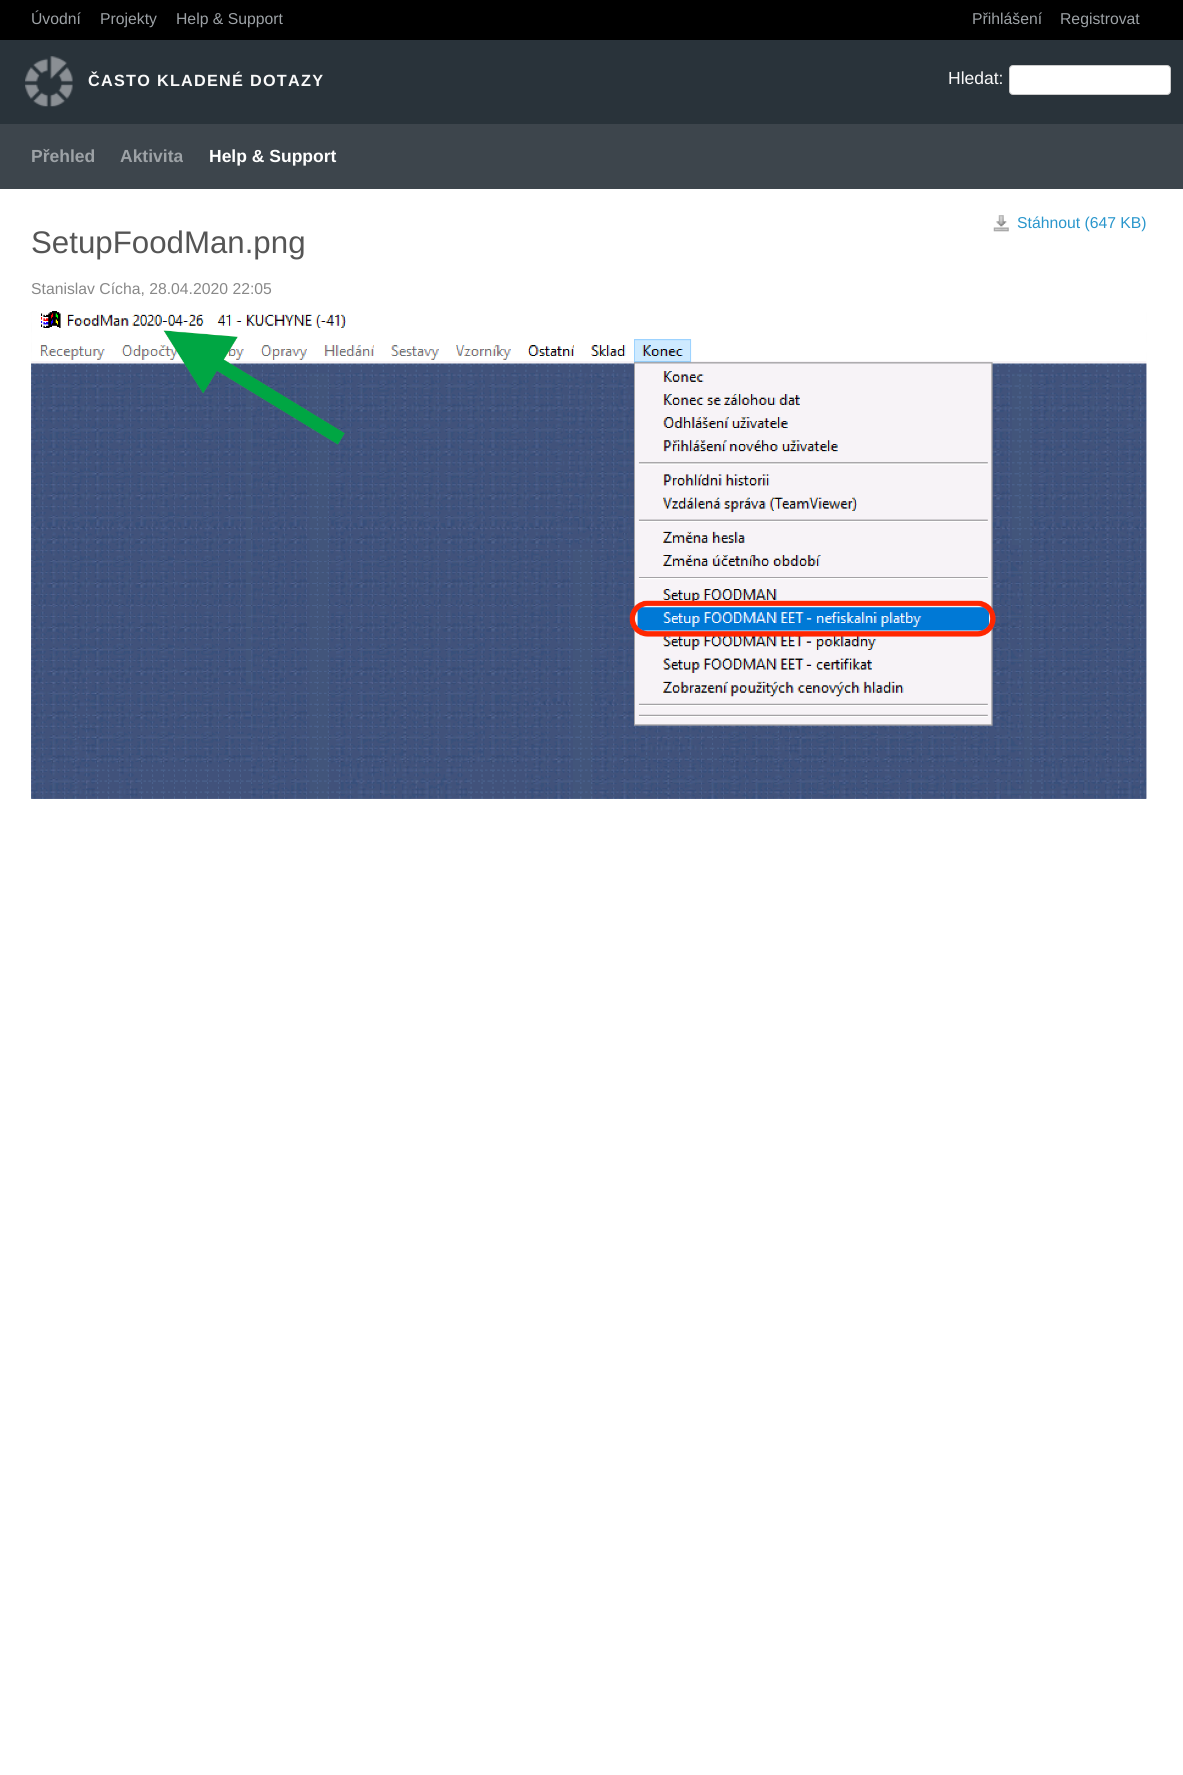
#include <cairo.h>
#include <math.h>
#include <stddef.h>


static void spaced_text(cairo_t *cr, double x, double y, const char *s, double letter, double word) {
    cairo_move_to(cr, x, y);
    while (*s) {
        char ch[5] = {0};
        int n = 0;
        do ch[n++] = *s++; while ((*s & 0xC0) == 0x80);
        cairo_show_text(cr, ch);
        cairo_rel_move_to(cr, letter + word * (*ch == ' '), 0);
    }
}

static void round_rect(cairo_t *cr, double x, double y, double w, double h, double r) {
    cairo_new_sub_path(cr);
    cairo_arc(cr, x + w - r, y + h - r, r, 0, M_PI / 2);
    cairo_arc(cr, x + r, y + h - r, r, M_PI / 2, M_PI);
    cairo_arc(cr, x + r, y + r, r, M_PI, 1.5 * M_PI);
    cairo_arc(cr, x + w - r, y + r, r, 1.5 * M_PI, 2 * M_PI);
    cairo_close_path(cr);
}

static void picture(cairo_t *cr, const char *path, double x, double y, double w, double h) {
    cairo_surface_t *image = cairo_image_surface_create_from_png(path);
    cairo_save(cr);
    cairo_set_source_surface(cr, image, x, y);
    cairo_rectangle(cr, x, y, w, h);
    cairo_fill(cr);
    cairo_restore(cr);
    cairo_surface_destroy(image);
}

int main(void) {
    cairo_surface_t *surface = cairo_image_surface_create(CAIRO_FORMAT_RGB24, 1183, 1775);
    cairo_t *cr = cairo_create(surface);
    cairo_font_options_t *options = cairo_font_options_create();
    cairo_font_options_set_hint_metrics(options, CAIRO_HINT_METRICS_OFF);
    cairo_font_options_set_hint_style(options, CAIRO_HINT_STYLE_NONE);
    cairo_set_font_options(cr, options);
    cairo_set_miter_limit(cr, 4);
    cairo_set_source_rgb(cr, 1, 1, 1);
    cairo_paint(cr);
    cairo_set_source_rgb(cr, 0, 0, 0);
    cairo_rectangle(cr, 0, 0, 1183, 40);
    cairo_fill(cr);
    cairo_select_font_face(cr, "Liberation Sans", CAIRO_FONT_SLANT_NORMAL, CAIRO_FONT_WEIGHT_NORMAL);
    cairo_set_font_size(cr, 15.75);
    cairo_set_source_rgb(cr, 0.616, 0.635, 0.651);
    cairo_move_to(cr, 31, 24);
    cairo_show_text(cr, "Úvodní");
    cairo_move_to(cr, 100, 24);
    cairo_show_text(cr, "Projekty");
    cairo_move_to(cr, 176, 24);
    cairo_show_text(cr, "Help & Support");
    cairo_move_to(cr, 972, 24);
    cairo_show_text(cr, "Přihlášení");
    cairo_move_to(cr, 1060, 24);
    cairo_show_text(cr, "Registrovat");
    cairo_set_source_rgb(cr, 0.161, 0.2, 0.227);
    cairo_rectangle(cr, 0, 40, 1183, 84);
    cairo_fill(cr);
    picture(cr, "img1.png", 25, 56, 48, 51);
    cairo_select_font_face(cr, "Liberation Sans", CAIRO_FONT_SLANT_NORMAL, CAIRO_FONT_WEIGHT_BOLD);
    cairo_set_font_size(cr, 16.25);
    cairo_set_source_rgb(cr, 0.973, 0.973, 0.973);
    spaced_text(cr, 88, 86, "ČASTO KLADENÉ DOTAZY", 1.25, 0);
    cairo_select_font_face(cr, "Liberation Sans", CAIRO_FONT_SLANT_NORMAL, CAIRO_FONT_WEIGHT_NORMAL);
    cairo_set_font_size(cr, 17.5);
    cairo_move_to(cr, 948, 84);
    cairo_show_text(cr, "Hledat:");
    cairo_set_source_rgb(cr, 1, 1, 1);
    round_rect(cr, 1009.5, 65.5, 161, 29, 3.5);
    cairo_fill_preserve(cr);
    cairo_set_source_rgb(cr, 0.8, 0.8, 0.8);
    cairo_set_line_width(cr, 1);
    cairo_stroke(cr);
    cairo_set_source_rgb(cr, 0.239, 0.271, 0.298);
    cairo_rectangle(cr, 0, 124, 1183, 65);
    cairo_fill(cr);
    cairo_select_font_face(cr, "Liberation Sans", CAIRO_FONT_SLANT_NORMAL, CAIRO_FONT_WEIGHT_BOLD);
    cairo_set_source_rgb(cr, 0.616, 0.635, 0.651);
    cairo_move_to(cr, 31, 162);
    cairo_show_text(cr, "Přehled");
    cairo_move_to(cr, 120, 162);
    cairo_show_text(cr, "Aktivita");
    cairo_set_source_rgb(cr, 1, 1, 1);
    cairo_move_to(cr, 209, 162);
    cairo_show_text(cr, "Help & Support");
    picture(cr, "img2.png", 993, 215, 16, 17);
    cairo_select_font_face(cr, "Liberation Sans", CAIRO_FONT_SLANT_NORMAL, CAIRO_FONT_WEIGHT_NORMAL);
    cairo_set_font_size(cr, 15.75);
    cairo_set_source_rgb(cr, 0.161, 0.588, 0.8);
    cairo_move_to(cr, 1017, 228);
    cairo_show_text(cr, "Stáhnout (647 KB)");
    cairo_set_font_size(cr, 31.25);
    cairo_set_source_rgb(cr, 0.333, 0.333, 0.333);
    cairo_move_to(cr, 31, 253);
    cairo_show_text(cr, "SetupFoodMan.png");
    cairo_set_font_size(cr, 15.75);
    cairo_set_source_rgb(cr, 0.533, 0.533, 0.533);
    cairo_move_to(cr, 31, 294);
    cairo_show_text(cr, "Stanislav Cícha, 28.04.2020 22:05");
    picture(cr, "img3.png", 31, 311, 1116, 488);
    picture(cr, "img4.png", 31, 363, 1116, 436);
    cairo_surface_write_to_png(surface, "page.png");
    cairo_font_options_destroy(options);
    cairo_destroy(cr);
    cairo_surface_destroy(surface);
    return 0;
}
